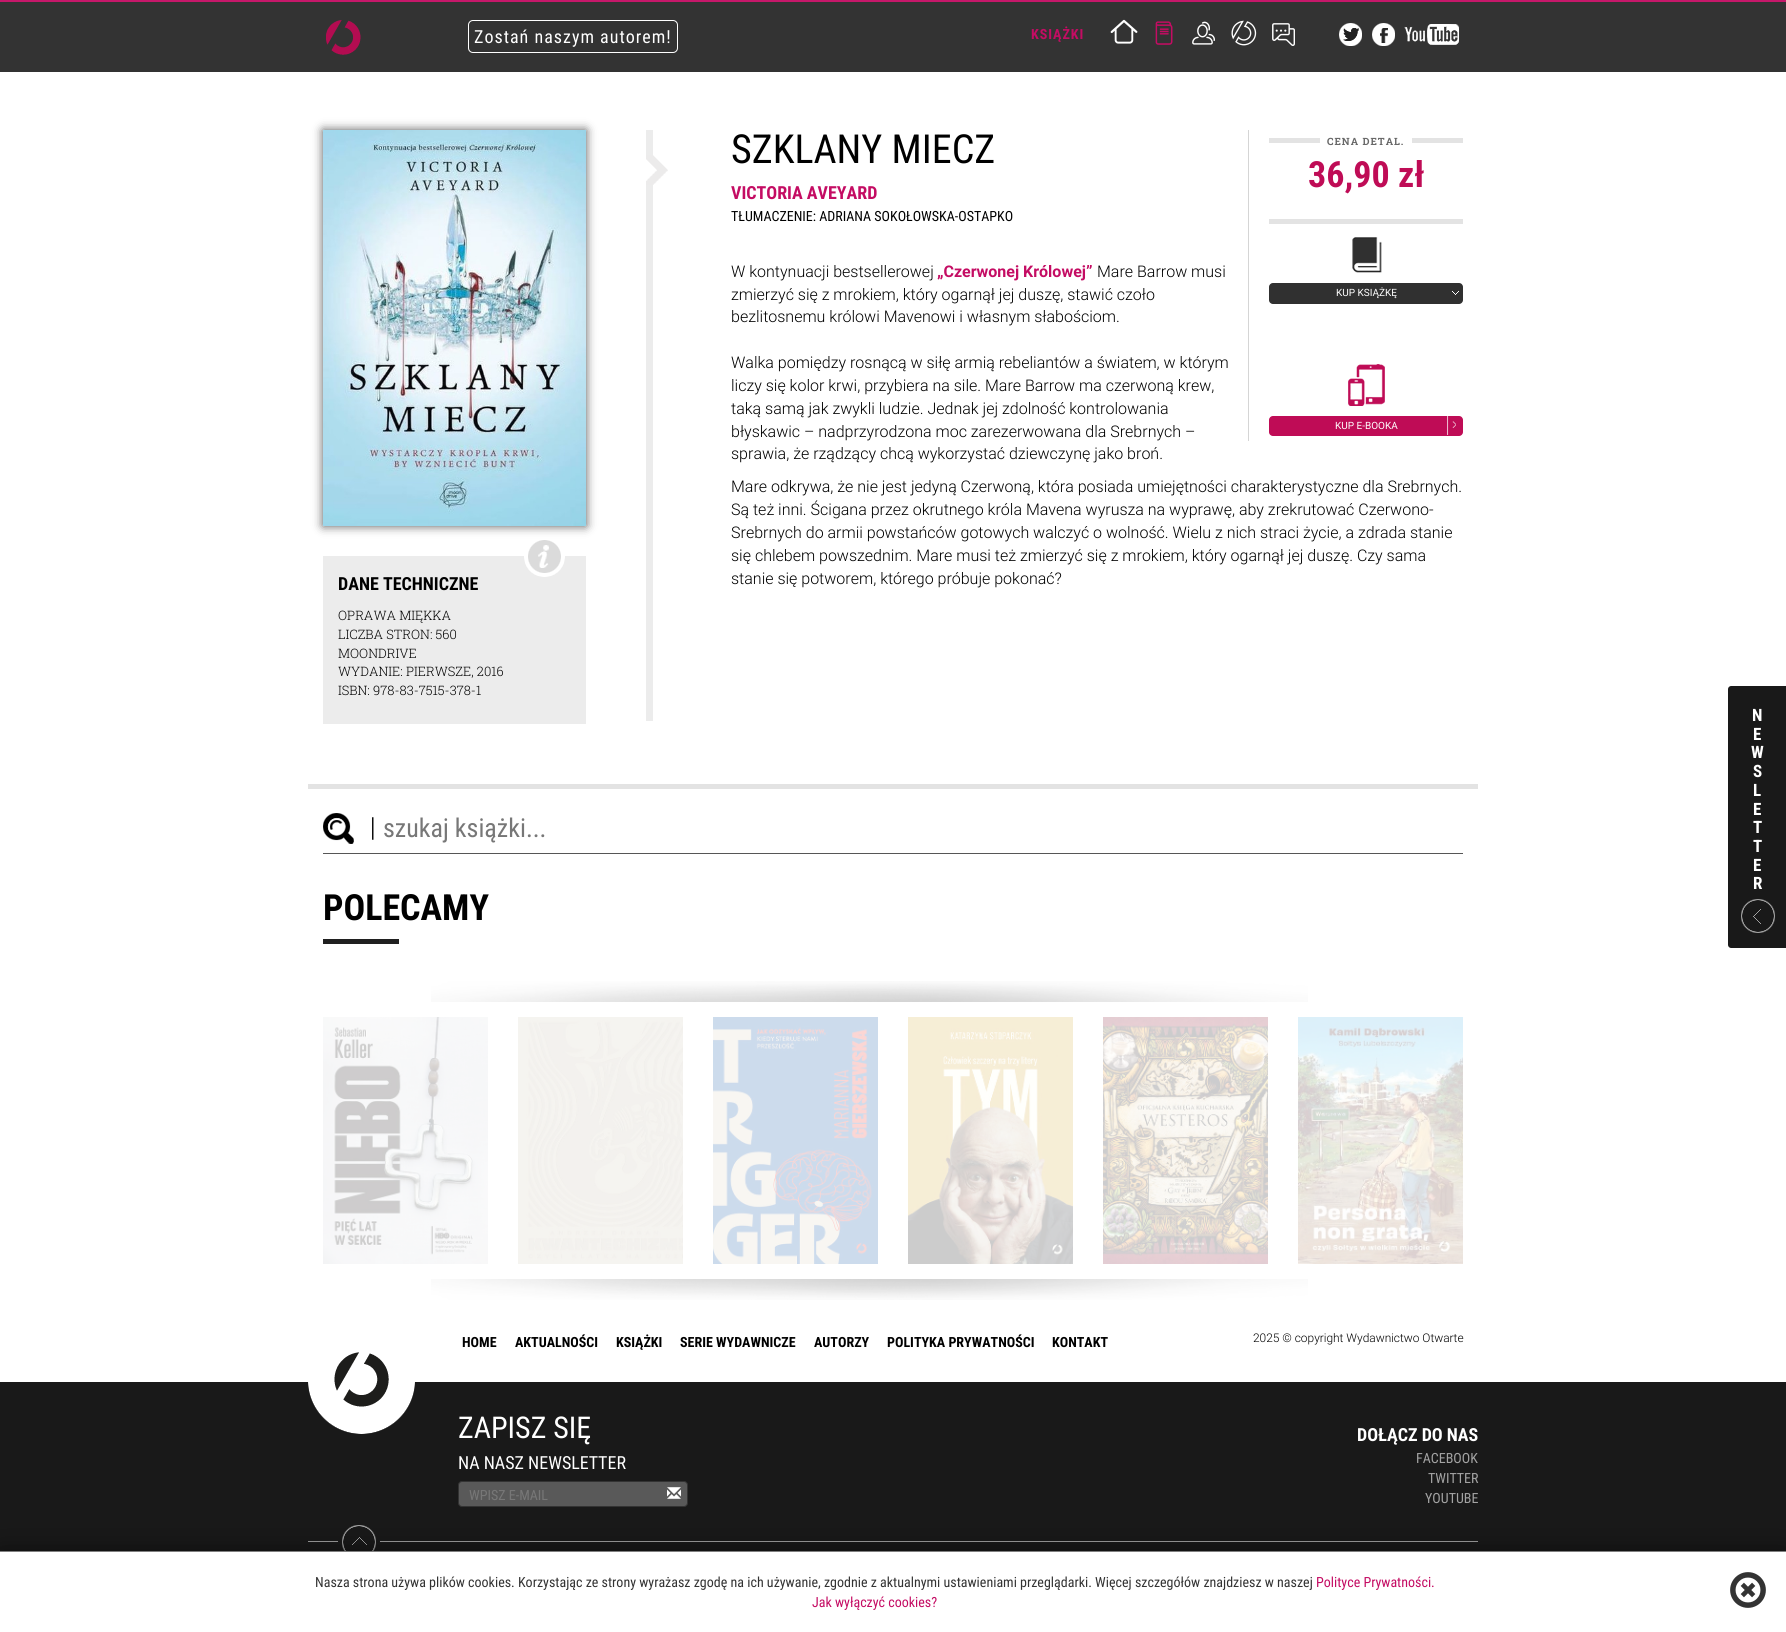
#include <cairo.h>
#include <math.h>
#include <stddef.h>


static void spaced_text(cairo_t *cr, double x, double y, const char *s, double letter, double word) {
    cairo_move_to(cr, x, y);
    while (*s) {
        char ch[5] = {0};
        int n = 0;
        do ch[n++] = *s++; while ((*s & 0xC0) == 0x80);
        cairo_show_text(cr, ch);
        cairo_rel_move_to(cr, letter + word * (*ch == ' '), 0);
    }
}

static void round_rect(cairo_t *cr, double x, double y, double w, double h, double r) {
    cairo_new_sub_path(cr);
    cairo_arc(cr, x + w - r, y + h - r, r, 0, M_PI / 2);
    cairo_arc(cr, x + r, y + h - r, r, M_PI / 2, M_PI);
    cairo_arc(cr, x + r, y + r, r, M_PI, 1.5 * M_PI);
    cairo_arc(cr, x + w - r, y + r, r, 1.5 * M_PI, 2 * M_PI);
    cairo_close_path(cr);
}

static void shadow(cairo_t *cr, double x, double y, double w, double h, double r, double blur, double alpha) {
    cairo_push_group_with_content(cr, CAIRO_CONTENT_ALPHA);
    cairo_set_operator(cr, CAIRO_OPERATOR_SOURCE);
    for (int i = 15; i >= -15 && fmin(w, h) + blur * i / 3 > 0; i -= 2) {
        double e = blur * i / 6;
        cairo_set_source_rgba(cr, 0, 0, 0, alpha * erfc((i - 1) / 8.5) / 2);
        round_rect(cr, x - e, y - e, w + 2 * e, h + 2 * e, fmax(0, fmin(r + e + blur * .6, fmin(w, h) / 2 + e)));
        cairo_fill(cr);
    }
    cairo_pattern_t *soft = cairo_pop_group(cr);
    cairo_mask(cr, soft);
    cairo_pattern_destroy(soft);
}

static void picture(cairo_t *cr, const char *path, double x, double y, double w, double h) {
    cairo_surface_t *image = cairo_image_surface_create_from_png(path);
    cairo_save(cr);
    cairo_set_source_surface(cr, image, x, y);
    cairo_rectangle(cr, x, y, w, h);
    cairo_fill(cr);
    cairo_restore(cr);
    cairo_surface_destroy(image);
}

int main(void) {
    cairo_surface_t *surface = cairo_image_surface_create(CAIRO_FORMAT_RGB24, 1786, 1632);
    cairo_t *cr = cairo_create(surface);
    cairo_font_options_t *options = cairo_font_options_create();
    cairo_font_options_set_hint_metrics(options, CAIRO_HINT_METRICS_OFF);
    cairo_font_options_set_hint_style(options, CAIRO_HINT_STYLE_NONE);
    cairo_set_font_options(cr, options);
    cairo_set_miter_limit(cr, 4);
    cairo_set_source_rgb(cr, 1, 1, 1);
    cairo_paint(cr);
    cairo_set_source_rgb(cr, 0.2, 0.2, 0.2);
    cairo_rectangle(cr, 0, 2, 1786, 70);
    cairo_fill(cr);
    cairo_set_source_rgb(cr, 0.776, 0.094, 0.416);
    cairo_rectangle(cr, 0, 0, 1786, 2);
    cairo_fill(cr);
    picture(cr, "img1.png", 326, 20, 35, 35);
    round_rect(cr, 468.5, 20.5, 209, 32, 4.5);
    cairo_set_source_rgb(cr, 1, 1, 1);
    cairo_set_line_width(cr, 1);
    cairo_stroke(cr);
    cairo_select_font_face(cr, "Roboto Condensed", CAIRO_FONT_SLANT_NORMAL, CAIRO_FONT_WEIGHT_NORMAL);
    cairo_set_font_size(cr, 18);
    spaced_text(cr, 474, 43, "Zostań naszym autorem!", 1, 0);
    cairo_select_font_face(cr, "Roboto Condensed", CAIRO_FONT_SLANT_NORMAL, CAIRO_FONT_WEIGHT_BOLD);
    cairo_set_font_size(cr, 14);
    cairo_set_source_rgb(cr, 0.769, 0.047, 0.388);
    spaced_text(cr, 1031, 39, "KSIĄŻKI", 1, 0);
    picture(cr, "img2.png", 1110, 19, 28, 25);
    picture(cr, "img3.png", 1155, 21, 18, 24);
    picture(cr, "img4.png", 1192, 21, 23, 24);
    picture(cr, "img5.png", 1231, 20, 26, 26);
    picture(cr, "img6.png", 1272, 23, 23, 23);
    picture(cr, "img7.png", 1339, 23, 23, 23);
    picture(cr, "img8.png", 1372, 23, 23, 23);
    picture(cr, "img9.png", 1404, 24, 55, 21);
    cairo_set_source_rgb(cr, 0.89, 0.89, 0.89);
    cairo_rectangle(cr, 308, 784, 1170, 5);
    cairo_fill(cr);
    cairo_set_source_rgb(cr, 0.925, 0.922, 0.922);
    cairo_rectangle(cr, 646, 130, 7, 591);
    cairo_fill(cr);
    picture(cr, "img10.png", 646, 155, 22, 30);
    cairo_select_font_face(cr, "Roboto Condensed", CAIRO_FONT_SLANT_NORMAL, CAIRO_FONT_WEIGHT_NORMAL);
    cairo_set_font_size(cr, 40);
    cairo_set_source_rgb(cr, 0, 0, 0);
    cairo_move_to(cr, 731, 163);
    cairo_show_text(cr, "SZKLANY MIECZ");
    cairo_set_source_rgb(cr, 0.835, 0.835, 0.835);
    cairo_rectangle(cr, 1248, 130, 1, 311);
    cairo_fill(cr);
    cairo_set_source_rgb(cr, 0.89, 0.89, 0.89);
    cairo_rectangle(cr, 1269, 138, 194, 5);
    cairo_fill(cr);
    cairo_set_source_rgb(cr, 1, 1, 1);
    round_rect(cr, 1320, 135, 92, 13, 2.5);
    cairo_fill(cr);
    cairo_select_font_face(cr, "Roboto Slab", CAIRO_FONT_SLANT_NORMAL, CAIRO_FONT_WEIGHT_BOLD);
    cairo_set_font_size(cr, 10);
    cairo_set_source_rgb(cr, 0.408, 0.408, 0.408);
    spaced_text(cr, 1327, 145, "CENA DETAL.", 1, 0);
    cairo_select_font_face(cr, "Roboto Condensed", CAIRO_FONT_SLANT_NORMAL, CAIRO_FONT_WEIGHT_BOLD);
    cairo_set_font_size(cr, 36);
    cairo_set_source_rgb(cr, 0.749, 0.047, 0.337);
    cairo_move_to(cr, 1308, 187);
    cairo_show_text(cr, "36,90 zł");
    cairo_set_source_rgb(cr, 0.89, 0.89, 0.89);
    cairo_rectangle(cr, 1269, 219, 194, 5);
    cairo_fill(cr);
    picture(cr, "img11.png", 1352, 237, 30, 36);
    cairo_set_source_rgb(cr, 0.188, 0.188, 0.188);
    round_rect(cr, 1269, 283, 194, 21, 4);
    cairo_fill(cr);
    picture(cr, "img12.png", 1452, 291, 7, 4);
    cairo_select_font_face(cr, "Roboto", CAIRO_FONT_SLANT_NORMAL, CAIRO_FONT_WEIGHT_NORMAL);
    cairo_set_font_size(cr, 10);
    cairo_set_source_rgb(cr, 1, 1, 1);
    cairo_move_to(cr, 1336, 296);
    cairo_show_text(cr, "KUP KSIĄŻKĘ");
    picture(cr, "img13.png", 1348, 364, 37, 42);
    cairo_set_source_rgb(cr, 0.749, 0.047, 0.337);
    round_rect(cr, 1269, 416, 194, 20, 4);
    cairo_fill(cr);
    picture(cr, "img14.png", 1447, 416, 9, 19);
    cairo_set_source_rgb(cr, 1, 1, 1);
    cairo_move_to(cr, 1335, 429);
    cairo_show_text(cr, "KUP E-BOOKA");
    cairo_select_font_face(cr, "Roboto Condensed", CAIRO_FONT_SLANT_NORMAL, CAIRO_FONT_WEIGHT_BOLD);
    cairo_set_font_size(cr, 18);
    cairo_set_source_rgb(cr, 0.769, 0.047, 0.388);
    cairo_move_to(cr, 731, 199);
    cairo_show_text(cr, "VICTORIA AVEYARD");
    cairo_select_font_face(cr, "Roboto Condensed", CAIRO_FONT_SLANT_NORMAL, CAIRO_FONT_WEIGHT_NORMAL);
    cairo_set_font_size(cr, 14);
    cairo_set_source_rgb(cr, 0, 0, 0);
    cairo_move_to(cr, 731, 221);
    cairo_show_text(cr, "TŁUMACZENIE: ADRIANA SOKOŁOWSKA-OSTAPKO");
    cairo_select_font_face(cr, "Roboto Light", CAIRO_FONT_SLANT_NORMAL, CAIRO_FONT_WEIGHT_NORMAL);
    cairo_set_font_size(cr, 16);
    cairo_move_to(cr, 731, 277);
    cairo_show_text(cr, "W kontynuacji bestsellerowej");
    cairo_select_font_face(cr, "Roboto", CAIRO_FONT_SLANT_NORMAL, CAIRO_FONT_WEIGHT_BOLD);
    cairo_set_source_rgb(cr, 0.769, 0.047, 0.388);
    cairo_move_to(cr, 937, 277);
    cairo_show_text(cr, "„Czerwonej Królowej”");
    cairo_select_font_face(cr, "Roboto Light", CAIRO_FONT_SLANT_NORMAL, CAIRO_FONT_WEIGHT_NORMAL);
    cairo_set_source_rgb(cr, 0, 0, 0);
    cairo_move_to(cr, 1097, 277);
    cairo_show_text(cr, "Mare Barrow musi");
    cairo_move_to(cr, 731, 300);
    cairo_show_text(cr, "zmierzyć się z mrokiem, który ogarnął jej duszę, stawić czoło");
    cairo_move_to(cr, 731, 322);
    cairo_show_text(cr, "bezlitosnemu królowi Mavenowi i własnym słabościom.");
    cairo_move_to(cr, 731, 368);
    cairo_show_text(cr, "Walka pomiędzy rosnącą w siłę armią rebeliantów a światem, w którym");
    cairo_move_to(cr, 731, 391);
    cairo_show_text(cr, "liczy się kolor krwi, przybiera na sile. Mare Barrow ma czerwoną krew,");
    cairo_move_to(cr, 731, 414);
    cairo_show_text(cr, "taką samą jak zwykli ludzie. Jednak jej zdolność kontrolowania");
    cairo_move_to(cr, 731, 437);
    cairo_show_text(cr, "błyskawic – nadprzyrodzona moc zarezerwowana dla Srebrnych –");
    cairo_move_to(cr, 731, 459);
    cairo_show_text(cr, "sprawia, że rządzący chcą wykorzystać dziewczynę jako broń.");
    cairo_move_to(cr, 731, 492);
    cairo_show_text(cr, "Mare odkrywa, że nie jest jedyną Czerwoną, która posiada umiejętności charakterystyczne dla Srebrnych.");
    cairo_move_to(cr, 731, 515);
    cairo_show_text(cr, "Są też inni. Ścigana przez okrutnego króla Mavena wyrusza na wyprawę, aby zrekrutować Czerwono-");
    cairo_move_to(cr, 731, 538);
    cairo_show_text(cr, "Srebrnych do armii powstańców gotowych walczyć o wolność. Wielu z nich straci życie, a zdrada stanie");
    cairo_move_to(cr, 731, 561);
    cairo_show_text(cr, "się chlebem powszednim. Mare musi też zmierzyć się z mrokiem, który ogarnął jej duszę. Czy sama");
    cairo_move_to(cr, 731, 584);
    cairo_show_text(cr, "stanie się potworem, którego próbuje pokonać?");
    cairo_set_source_rgb(cr, 0.333, 0.333, 0.333);
    shadow(cr, 323, 130, 263, 396, 0, 5, 1);
    picture(cr, "img15.png", 323, 130, 263, 396);
    cairo_set_source_rgb(cr, 0.925, 0.922, 0.922);
    cairo_rectangle(cr, 323, 556, 263, 168);
    cairo_fill(cr);
    picture(cr, "img16.png", 524, 540, 41, 37);
    cairo_select_font_face(cr, "Roboto Condensed", CAIRO_FONT_SLANT_NORMAL, CAIRO_FONT_WEIGHT_BOLD);
    cairo_set_font_size(cr, 18);
    cairo_set_source_rgb(cr, 0, 0, 0);
    cairo_move_to(cr, 338, 590);
    cairo_show_text(cr, "DANE TECHNICZNE");
    cairo_select_font_face(cr, "Roboto Slab Light", CAIRO_FONT_SLANT_NORMAL, CAIRO_FONT_WEIGHT_NORMAL);
    cairo_set_font_size(cr, 13);
    cairo_move_to(cr, 338, 620);
    cairo_show_text(cr, "OPRAWA MIĘKKA");
    cairo_move_to(cr, 338, 639);
    cairo_show_text(cr, "LICZBA STRON: 560");
    cairo_move_to(cr, 338, 658);
    cairo_show_text(cr, "MOONDRIVE");
    cairo_move_to(cr, 338, 676);
    cairo_show_text(cr, "WYDANIE: PIERWSZE, 2016");
    cairo_move_to(cr, 338, 695);
    cairo_show_text(cr, "ISBN: 978-83-7515-378-1");
    picture(cr, "img17.png", 323, 813, 51, 31);
    cairo_set_source_rgb(cr, 0.337, 0.337, 0.337);
    cairo_rectangle(cr, 323, 853, 1140, 1);
    cairo_fill(cr);
    cairo_select_font_face(cr, "Roboto Condensed", CAIRO_FONT_SLANT_NORMAL, CAIRO_FONT_WEIGHT_NORMAL);
    cairo_set_font_size(cr, 26);
    cairo_set_source_rgb(cr, 0.467, 0.467, 0.467);
    cairo_move_to(cr, 383, 837);
    cairo_show_text(cr, "szukaj książki...");
    cairo_set_source_rgb(cr, 0.098, 0.098, 0.098);
    cairo_new_path(cr);
    cairo_move_to(cr, 1731, 686);
    cairo_line_to(cr, 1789, 686);
    cairo_line_to(cr, 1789, 948);
    cairo_line_to(cr, 1731, 948);
    cairo_curve_to(cr, 1729.5, 948, 1728, 946.5, 1728, 945);
    cairo_line_to(cr, 1728, 689);
    cairo_curve_to(cr, 1728, 687.5, 1729.5, 686, 1731, 686);
    cairo_close_path(cr);
    cairo_fill(cr);
    picture(cr, "img18.png", 1741, 899, 34, 34);
    cairo_select_font_face(cr, "Roboto Condensed", CAIRO_FONT_SLANT_NORMAL, CAIRO_FONT_WEIGHT_BOLD);
    cairo_set_font_size(cr, 17);
    cairo_set_source_rgb(cr, 1, 1, 1);
    cairo_move_to(cr, 1752, 721);
    cairo_show_text(cr, "N");
    cairo_move_to(cr, 1753, 740);
    cairo_show_text(cr, "E");
    cairo_move_to(cr, 1751, 758);
    cairo_show_text(cr, "W");
    cairo_move_to(cr, 1753, 777);
    cairo_show_text(cr, "S");
    cairo_move_to(cr, 1753, 796);
    cairo_show_text(cr, "L");
    cairo_move_to(cr, 1753, 815);
    cairo_show_text(cr, "E");
    cairo_move_to(cr, 1753, 833);
    cairo_show_text(cr, "T");
    cairo_move_to(cr, 1753, 852);
    cairo_show_text(cr, "T");
    cairo_move_to(cr, 1753, 871);
    cairo_show_text(cr, "E");
    cairo_move_to(cr, 1753, 889);
    cairo_show_text(cr, "R");
    cairo_set_source_rgb(cr, 0.125, 0.125, 0.125);
    cairo_rectangle(cr, 323, 939, 76, 5);
    cairo_fill(cr);
    cairo_set_font_size(cr, 36);
    cairo_set_source_rgb(cr, 0, 0, 0);
    cairo_move_to(cr, 323, 920);
    cairo_show_text(cr, "POLECAMY");
    picture(cr, "img19.png", 431, 981, 877, 21);
    picture(cr, "img20.png", 323, 1017, 165, 247);
    picture(cr, "img21.png", 518, 1017, 165, 247);
    picture(cr, "img22.png", 713, 1017, 165, 247);
    picture(cr, "img23.png", 908, 1017, 165, 247);
    picture(cr, "img24.png", 1103, 1017, 165, 247);
    picture(cr, "img25.png", 1298, 1017, 165, 247);
    picture(cr, "img26.png", 431, 1279, 877, 21);
    cairo_set_font_size(cr, 14);
    cairo_move_to(cr, 462, 1347);
    cairo_show_text(cr, "HOME");
    cairo_move_to(cr, 515, 1347);
    cairo_show_text(cr, "AKTUALNOŚCI");
    cairo_move_to(cr, 616, 1347);
    cairo_show_text(cr, "KSIĄŻKI");
    cairo_move_to(cr, 680, 1347);
    cairo_show_text(cr, "SERIE WYDAWNICZE");
    cairo_move_to(cr, 814, 1347);
    cairo_show_text(cr, "AUTORZY");
    cairo_move_to(cr, 887, 1347);
    cairo_show_text(cr, "POLITYKA PRYWATNOŚCI");
    cairo_move_to(cr, 1052, 1347);
    cairo_show_text(cr, "KONTAKT");
    cairo_select_font_face(cr, "Roboto Light", CAIRO_FONT_SLANT_NORMAL, CAIRO_FONT_WEIGHT_NORMAL);
    cairo_set_font_size(cr, 11.9);
    cairo_move_to(cr, 1253, 1342);
    cairo_show_text(cr, "2025 © copyright Wydawnictwo Otwarte");
    cairo_set_source_rgb(cr, 0.098, 0.098, 0.098);
    cairo_rectangle(cr, 0, 1382, 1786, 169);
    cairo_fill(cr);
    picture(cr, "img27.png", 308, 1352, 107, 82);
    cairo_select_font_face(cr, "Roboto Condensed", CAIRO_FONT_SLANT_NORMAL, CAIRO_FONT_WEIGHT_NORMAL);
    cairo_set_font_size(cr, 30);
    cairo_set_source_rgb(cr, 1, 1, 1);
    cairo_move_to(cr, 458, 1438);
    cairo_show_text(cr, "ZAPISZ SIĘ");
    cairo_set_font_size(cr, 18);
    cairo_move_to(cr, 458, 1469);
    cairo_show_text(cr, "NA NASZ NEWSLETTER");
    cairo_set_source_rgb(cr, 0.349, 0.349, 0.349);
    round_rect(cr, 458.5, 1481.5, 229, 25, 3.5);
    cairo_fill_preserve(cr);
    cairo_set_source_rgb(cr, 0.2, 0.2, 0.2);
    cairo_stroke(cr);
    cairo_set_font_size(cr, 14);
    cairo_set_source_rgb(cr, 0.467, 0.467, 0.467);
    cairo_move_to(cr, 469, 1500);
    cairo_show_text(cr, "WPISZ E-MAIL");
    picture(cr, "img28.png", 667, 1487, 14, 12);
    cairo_select_font_face(cr, "Roboto Condensed", CAIRO_FONT_SLANT_NORMAL, CAIRO_FONT_WEIGHT_BOLD);
    cairo_set_font_size(cr, 18);
    cairo_set_source_rgb(cr, 1, 1, 1);
    cairo_move_to(cr, 1357, 1441);
    cairo_show_text(cr, "DOŁĄCZ DO NAS");
    cairo_select_font_face(cr, "Roboto Condensed", CAIRO_FONT_SLANT_NORMAL, CAIRO_FONT_WEIGHT_NORMAL);
    cairo_set_font_size(cr, 14);
    cairo_set_source_rgb(cr, 0.639, 0.639, 0.639);
    cairo_move_to(cr, 1416, 1463);
    cairo_show_text(cr, "FACEBOOK");
    cairo_move_to(cr, 1428, 1483);
    cairo_show_text(cr, "TWITTER");
    cairo_move_to(cr, 1425, 1503);
    cairo_show_text(cr, "YOUTUBE");
    cairo_set_source_rgb(cr, 0.635, 0.635, 0.635);
    cairo_rectangle(cr, 308, 1541, 1170, 1);
    cairo_fill(cr);
    picture(cr, "img29.png", 338, 1525, 42, 26);
    cairo_set_source_rgb(cr, 0, 0, 0);
    shadow(cr, 0, 1551, 1786, 81, 0, 12.5, 0.5);
    cairo_set_source_rgb(cr, 1, 1, 1);
    cairo_rectangle(cr, 0, 1552, 1786, 80);
    cairo_fill(cr);
    cairo_set_source_rgb(cr, 0.502, 0.502, 0.502);
    cairo_rectangle(cr, 0, 1551, 1786, 1);
    cairo_fill(cr);
    cairo_set_source_rgb(cr, 0.2, 0.2, 0.2);
    cairo_move_to(cr, 315, 1587);
    cairo_show_text(cr, "Nasza strona używa plików cookies. Korzystając ze strony wyrażasz zgodę na ich używanie, zgodnie z aktualnymi ustawieniami przeglądarki. Więcej szczegółów znajdziesz w naszej");
    cairo_set_source_rgb(cr, 0.769, 0.047, 0.388);
    cairo_move_to(cr, 1316, 1587);
    cairo_show_text(cr, "Polityce Prywatności.");
    picture(cr, "img30.png", 1730, 1572, 36, 36);
    cairo_move_to(cr, 812, 1607);
    cairo_show_text(cr, "Jak wyłączyć cookies?");
    cairo_surface_write_to_png(surface, "page.png");
    cairo_font_options_destroy(options);
    cairo_destroy(cr);
    cairo_surface_destroy(surface);
    return 0;
}
